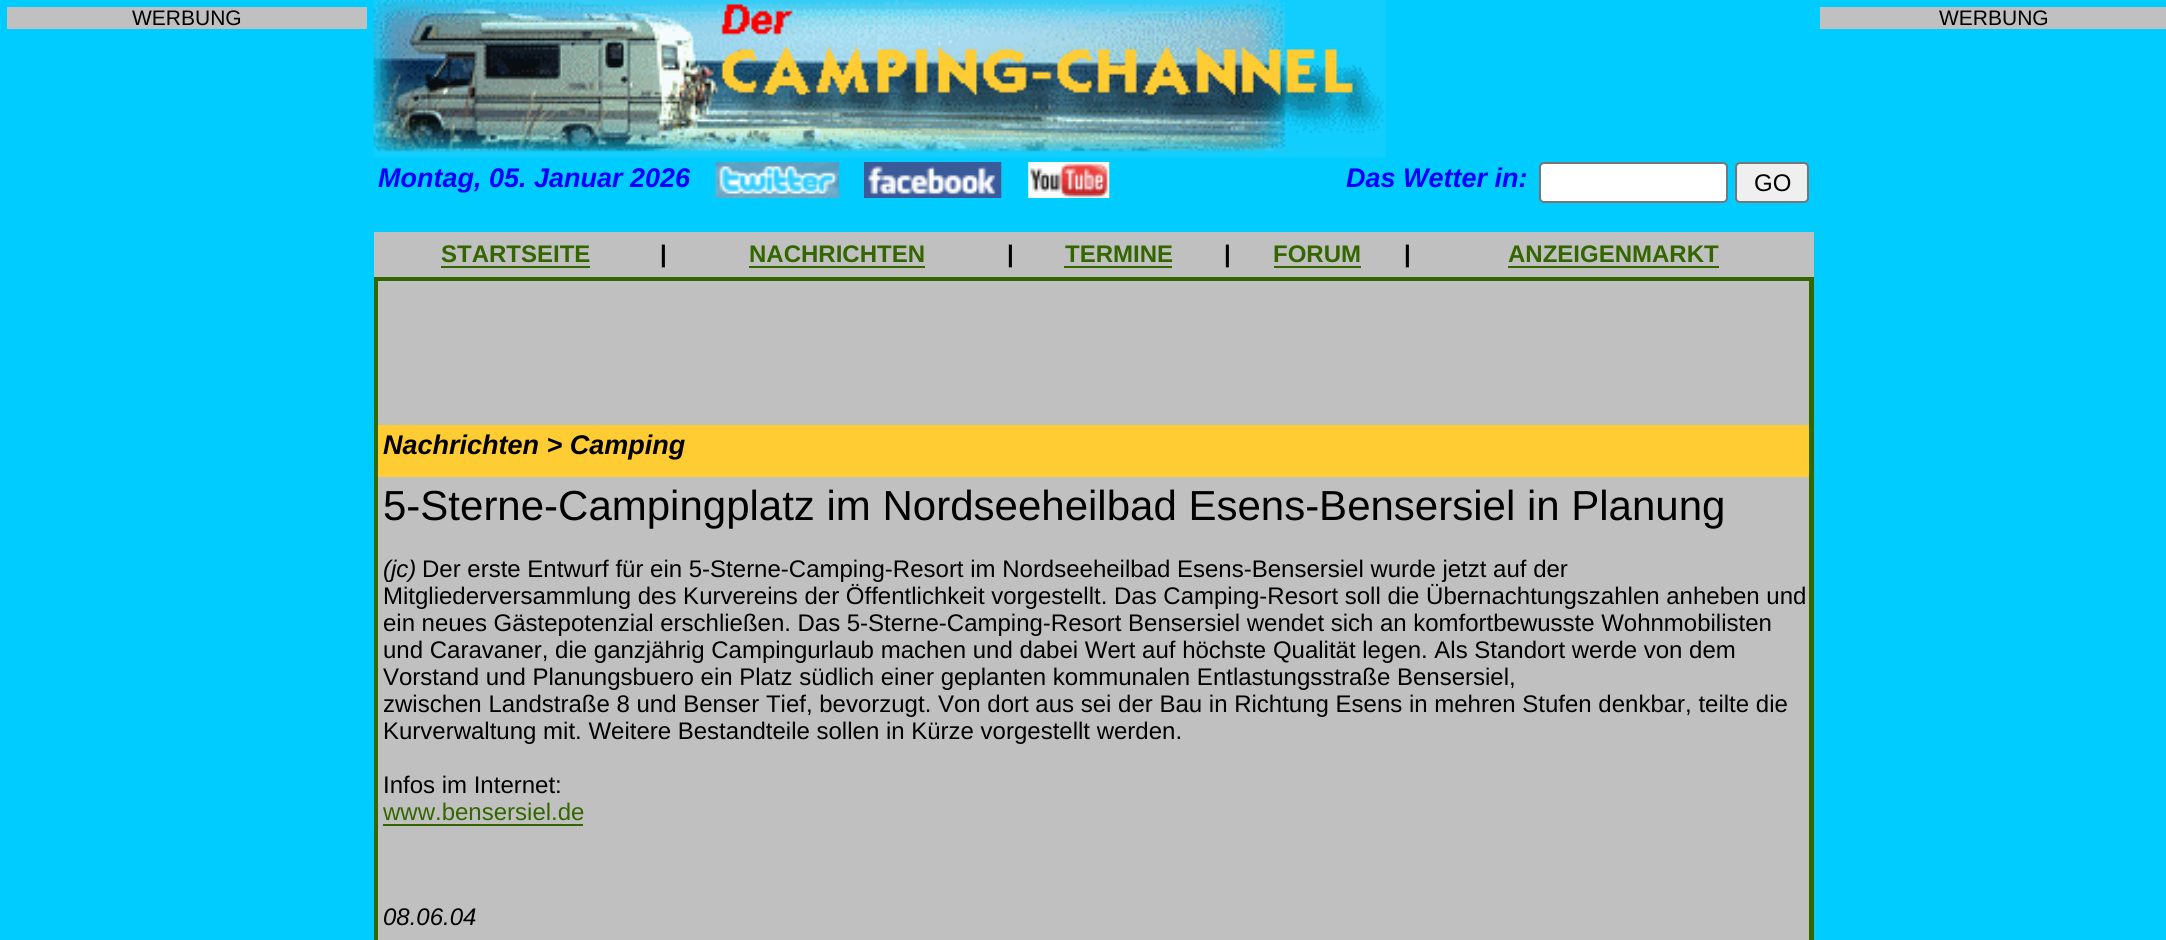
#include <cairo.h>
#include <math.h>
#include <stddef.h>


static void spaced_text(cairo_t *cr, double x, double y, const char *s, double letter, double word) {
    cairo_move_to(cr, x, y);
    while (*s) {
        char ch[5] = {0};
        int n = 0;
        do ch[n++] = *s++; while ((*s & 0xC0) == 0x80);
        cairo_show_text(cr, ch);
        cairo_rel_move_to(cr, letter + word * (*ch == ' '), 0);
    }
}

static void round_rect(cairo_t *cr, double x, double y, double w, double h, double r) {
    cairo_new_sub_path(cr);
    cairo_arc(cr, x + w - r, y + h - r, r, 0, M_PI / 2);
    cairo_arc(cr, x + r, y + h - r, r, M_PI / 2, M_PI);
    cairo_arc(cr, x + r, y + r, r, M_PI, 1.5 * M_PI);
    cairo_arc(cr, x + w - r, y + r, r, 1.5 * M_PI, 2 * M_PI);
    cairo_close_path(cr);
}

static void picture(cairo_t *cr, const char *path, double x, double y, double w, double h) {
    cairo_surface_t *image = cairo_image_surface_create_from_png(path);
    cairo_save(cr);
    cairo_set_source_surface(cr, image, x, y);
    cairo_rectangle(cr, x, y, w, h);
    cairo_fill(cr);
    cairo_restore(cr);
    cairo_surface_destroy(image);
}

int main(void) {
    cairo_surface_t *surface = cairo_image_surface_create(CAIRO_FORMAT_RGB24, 2166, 940);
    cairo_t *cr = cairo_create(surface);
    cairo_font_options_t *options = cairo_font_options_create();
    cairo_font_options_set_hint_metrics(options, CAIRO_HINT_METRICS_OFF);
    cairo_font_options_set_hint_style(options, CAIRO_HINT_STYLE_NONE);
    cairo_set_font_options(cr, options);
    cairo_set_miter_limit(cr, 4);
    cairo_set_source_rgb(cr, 0, 0.8, 1);
    cairo_paint(cr);
    cairo_set_source_rgb(cr, 0.753, 0.753, 0.753);
    cairo_rectangle(cr, 7, 7, 360, 22);
    cairo_fill(cr);
    cairo_select_font_face(cr, "Liberation Sans", CAIRO_FONT_SLANT_NORMAL, CAIRO_FONT_WEIGHT_NORMAL);
    cairo_set_font_size(cr, 21);
    cairo_set_source_rgb(cr, 0, 0, 0);
    cairo_move_to(cr, 132, 25);
    cairo_show_text(cr, "WERBUNG");
    cairo_set_source_rgb(cr, 0.753, 0.753, 0.753);
    cairo_rectangle(cr, 1820, 7, 346, 22);
    cairo_fill(cr);
    cairo_set_source_rgb(cr, 0, 0, 0);
    cairo_move_to(cr, 1939, 25);
    cairo_show_text(cr, "WERBUNG");
    picture(cr, "img1.png", 373, 0, 1013, 158);
    cairo_select_font_face(cr, "Liberation Sans", CAIRO_FONT_SLANT_ITALIC, CAIRO_FONT_WEIGHT_BOLD);
    cairo_set_font_size(cr, 27);
    cairo_set_source_rgb(cr, 0, 0, 1);
    cairo_move_to(cr, 378, 187);
    cairo_show_text(cr, "Montag, 05. Januar 2026");
    picture(cr, "img2.png", 715, 162, 125, 36);
    picture(cr, "img3.png", 864, 162, 138, 36);
    picture(cr, "img4.png", 1028, 162, 82, 36);
    cairo_move_to(cr, 1346, 187);
    cairo_show_text(cr, "Das Wetter in:");
    cairo_set_source_rgb(cr, 1, 1, 1);
    round_rect(cr, 1540, 163, 187, 39, 4);
    cairo_fill_preserve(cr);
    cairo_set_source_rgb(cr, 0.463, 0.463, 0.463);
    cairo_stroke(cr);
    cairo_set_source_rgb(cr, 0.937, 0.937, 0.937);
    round_rect(cr, 1736, 163, 72, 39, 4);
    cairo_fill_preserve(cr);
    cairo_set_source_rgb(cr, 0.463, 0.463, 0.463);
    cairo_stroke(cr);
    cairo_select_font_face(cr, "Liberation Sans", CAIRO_FONT_SLANT_NORMAL, CAIRO_FONT_WEIGHT_NORMAL);
    cairo_set_font_size(cr, 24);
    cairo_set_source_rgb(cr, 0, 0, 0);
    cairo_move_to(cr, 1754, 191);
    cairo_show_text(cr, "GO");
    cairo_set_source_rgb(cr, 0.753, 0.753, 0.753);
    cairo_rectangle(cr, 374, 232, 1440, 45);
    cairo_fill(cr);
    cairo_select_font_face(cr, "Liberation Sans", CAIRO_FONT_SLANT_NORMAL, CAIRO_FONT_WEIGHT_BOLD);
    cairo_set_source_rgb(cr, 0.2, 0.4, 0);
    cairo_move_to(cr, 441, 262);
    cairo_show_text(cr, "STARTSEITE");
    cairo_rectangle(cr, 441, 266, 149, 2);
    cairo_fill(cr);
    cairo_set_source_rgb(cr, 0, 0, 0);
    cairo_move_to(cr, 660, 262);
    cairo_show_text(cr, "|");
    cairo_set_source_rgb(cr, 0.2, 0.4, 0);
    cairo_move_to(cr, 749, 262);
    cairo_show_text(cr, "NACHRICHTEN");
    cairo_rectangle(cr, 749, 266, 176, 2);
    cairo_fill(cr);
    cairo_set_source_rgb(cr, 0, 0, 0);
    cairo_move_to(cr, 1007, 262);
    cairo_show_text(cr, "|");
    cairo_set_source_rgb(cr, 0.2, 0.4, 0);
    cairo_move_to(cr, 1065, 262);
    cairo_show_text(cr, "TERMINE");
    cairo_rectangle(cr, 1064, 266, 108, 2);
    cairo_fill(cr);
    cairo_set_source_rgb(cr, 0, 0, 0);
    cairo_move_to(cr, 1224, 262);
    cairo_show_text(cr, "|");
    cairo_set_source_rgb(cr, 0.2, 0.4, 0);
    cairo_move_to(cr, 1273, 262);
    cairo_show_text(cr, "FORUM");
    cairo_rectangle(cr, 1274, 266, 87, 2);
    cairo_fill(cr);
    cairo_set_source_rgb(cr, 0, 0, 0);
    cairo_move_to(cr, 1404, 262);
    cairo_show_text(cr, "|");
    cairo_set_source_rgb(cr, 0.2, 0.4, 0);
    cairo_move_to(cr, 1508, 262);
    cairo_show_text(cr, "ANZEIGENMARKT");
    cairo_rectangle(cr, 1508, 266, 211, 2);
    cairo_fill(cr);
    cairo_rectangle(cr, 374, 277, 1440, 663);
    cairo_fill(cr);
    cairo_set_source_rgb(cr, 0.753, 0.753, 0.753);
    cairo_rectangle(cr, 378, 281, 1431, 659);
    cairo_fill(cr);
    cairo_set_source_rgb(cr, 1, 0.8, 0.2);
    cairo_rectangle(cr, 378, 425, 1431, 52);
    cairo_fill(cr);
    cairo_select_font_face(cr, "Liberation Sans", CAIRO_FONT_SLANT_ITALIC, CAIRO_FONT_WEIGHT_BOLD);
    cairo_set_font_size(cr, 27);
    cairo_set_source_rgb(cr, 0, 0, 0);
    cairo_move_to(cr, 383, 454);
    cairo_show_text(cr, "Nachrichten > Camping");
    cairo_select_font_face(cr, "Liberation Sans", CAIRO_FONT_SLANT_NORMAL, CAIRO_FONT_WEIGHT_NORMAL);
    cairo_set_font_size(cr, 42);
    cairo_move_to(cr, 383, 520);
    cairo_show_text(cr, "5-Sterne-Campingplatz im Nordseeheilbad Esens-Bensersiel in Planung");
    cairo_select_font_face(cr, "Liberation Sans", CAIRO_FONT_SLANT_ITALIC, CAIRO_FONT_WEIGHT_NORMAL);
    cairo_set_font_size(cr, 24);
    cairo_move_to(cr, 383, 577);
    cairo_show_text(cr, "(jc)");
    cairo_select_font_face(cr, "Liberation Sans", CAIRO_FONT_SLANT_NORMAL, CAIRO_FONT_WEIGHT_NORMAL);
    cairo_move_to(cr, 422, 577);
    cairo_show_text(cr, "Der erste Entwurf für ein 5-Sterne-Camping-Resort im Nordseeheilbad Esens-Bensersiel wurde jetzt auf der");
    cairo_move_to(cr, 383, 604);
    cairo_show_text(cr, "Mitgliederversammlung des Kurvereins der Öffentlichkeit vorgestellt. Das Camping-Resort soll die Übernachtungszahlen anheben und");
    spaced_text(cr, 383, 631, "ein neues Gästepotenzial erschließen. Das 5-Sterne-Camping-Resort Bensersiel wendet sich an komfortbewusste Wohnmobilisten", 0, -0.1);
    cairo_move_to(cr, 383, 658);
    cairo_show_text(cr, "und Caravaner, die ganzjährig Campingurlaub machen und dabei Wert auf höchste Qualität legen. Als Standort werde von dem");
    cairo_move_to(cr, 383, 685);
    cairo_show_text(cr, "Vorstand und Planungsbuero ein Platz südlich einer geplanten kommunalen Entlastungsstraße Bensersiel,");
    cairo_move_to(cr, 383, 712);
    cairo_show_text(cr, "zwischen Landstraße 8 und Benser Tief, bevorzugt. Von dort aus sei der Bau in Richtung Esens in mehren Stufen denkbar, teilte die");
    cairo_move_to(cr, 383, 739);
    cairo_show_text(cr, "Kurverwaltung mit. Weitere Bestandteile sollen in Kürze vorgestellt werden.");
    cairo_move_to(cr, 383, 793);
    cairo_show_text(cr, "Infos im Internet:");
    cairo_set_source_rgb(cr, 0.2, 0.4, 0);
    cairo_move_to(cr, 383, 820);
    cairo_show_text(cr, "www.bensersiel.de");
    cairo_rectangle(cr, 383, 824, 200, 2);
    cairo_fill(cr);
    cairo_select_font_face(cr, "Liberation Sans", CAIRO_FONT_SLANT_ITALIC, CAIRO_FONT_WEIGHT_NORMAL);
    cairo_set_source_rgb(cr, 0, 0, 0);
    cairo_move_to(cr, 383, 925);
    cairo_show_text(cr, "08.06.04");
    cairo_surface_write_to_png(surface, "page.png");
    cairo_font_options_destroy(options);
    cairo_destroy(cr);
    cairo_surface_destroy(surface);
    return 0;
}
